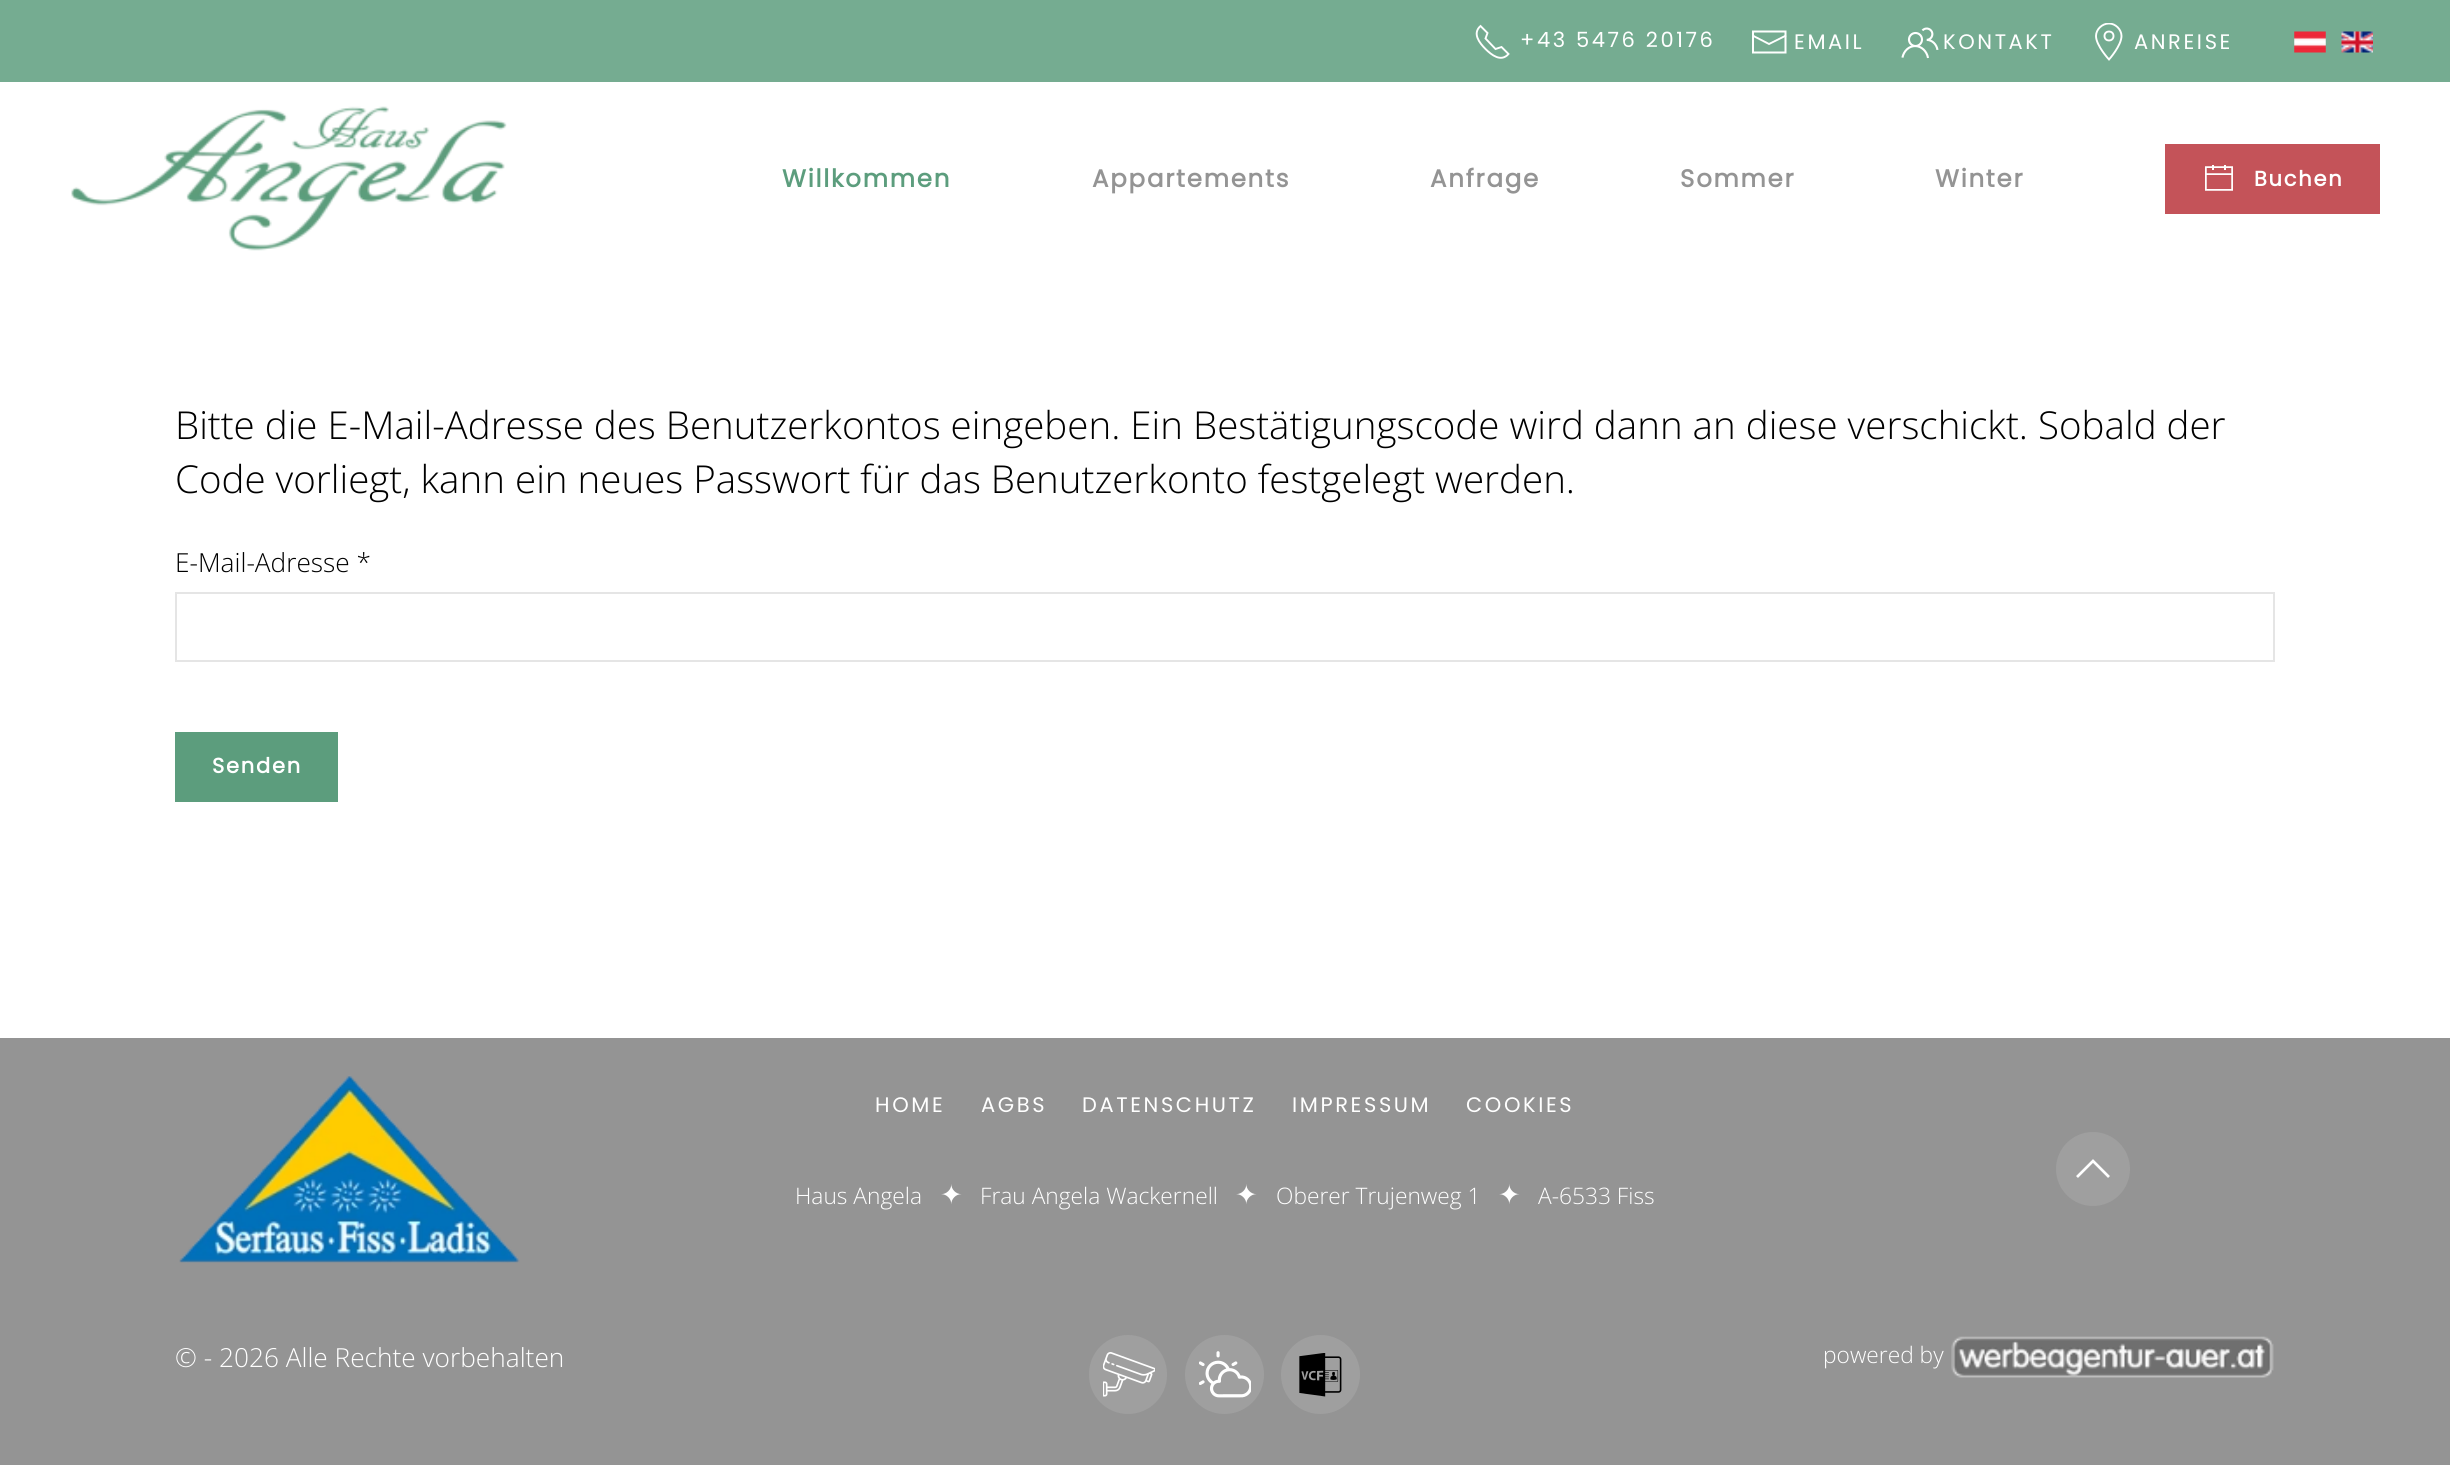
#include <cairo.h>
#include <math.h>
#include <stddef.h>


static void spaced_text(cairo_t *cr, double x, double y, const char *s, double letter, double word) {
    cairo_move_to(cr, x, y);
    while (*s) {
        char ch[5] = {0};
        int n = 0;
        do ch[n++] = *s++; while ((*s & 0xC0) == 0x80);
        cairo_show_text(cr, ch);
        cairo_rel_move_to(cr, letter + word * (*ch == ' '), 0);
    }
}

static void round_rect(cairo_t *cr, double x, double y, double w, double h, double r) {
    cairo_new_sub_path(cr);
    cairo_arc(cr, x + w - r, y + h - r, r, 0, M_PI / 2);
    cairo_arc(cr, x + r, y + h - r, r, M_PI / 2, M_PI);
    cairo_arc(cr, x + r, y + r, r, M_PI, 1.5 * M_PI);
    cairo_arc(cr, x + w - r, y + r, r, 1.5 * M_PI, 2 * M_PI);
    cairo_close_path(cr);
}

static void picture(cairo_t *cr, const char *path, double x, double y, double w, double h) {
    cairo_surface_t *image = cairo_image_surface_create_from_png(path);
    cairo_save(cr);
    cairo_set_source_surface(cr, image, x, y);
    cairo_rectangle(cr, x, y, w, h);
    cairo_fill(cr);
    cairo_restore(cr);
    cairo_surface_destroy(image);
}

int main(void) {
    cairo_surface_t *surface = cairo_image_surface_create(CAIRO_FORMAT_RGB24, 2450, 1465);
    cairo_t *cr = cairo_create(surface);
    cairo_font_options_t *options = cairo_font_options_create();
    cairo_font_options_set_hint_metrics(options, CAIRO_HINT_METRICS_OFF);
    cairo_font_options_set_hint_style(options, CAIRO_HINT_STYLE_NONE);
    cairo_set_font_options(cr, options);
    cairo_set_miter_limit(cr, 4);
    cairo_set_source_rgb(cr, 1, 1, 1);
    cairo_paint(cr);
    cairo_set_source_rgb(cr, 0.459, 0.675, 0.569);
    cairo_rectangle(cr, 0, 0, 2450, 82);
    cairo_fill(cr);
    cairo_new_path(cr);
    cairo_move_to(cr, 1485.5, 49);
    cairo_curve_to(cr, 1491.5, 55, 1501, 62.5, 1508.5, 54);
    cairo_line_to(cr, 1501.5, 47);
    cairo_line_to(cr, 1495.5, 49);
    cairo_line_to(cr, 1485.5, 38.5);
    cairo_line_to(cr, 1487.5, 33);
    cairo_line_to(cr, 1480.5, 26);
    cairo_curve_to(cr, 1472, 33.5, 1479.5, 43, 1485.5, 49);
    cairo_set_source_rgb(cr, 1, 1, 1);
    cairo_set_line_width(cr, 1.9);
    cairo_stroke(cr);
    cairo_select_font_face(cr, "Poppins", CAIRO_FONT_SLANT_NORMAL, CAIRO_FONT_WEIGHT_NORMAL);
    cairo_set_font_size(cr, 21);
    spaced_text(cr, 1520, 47, "+43 5476 20176", 2.6, 0);
    cairo_new_path(cr);
    cairo_move_to(cr, 1752.5, 35.5);
    cairo_line_to(cr, 1769, 44);
    cairo_line_to(cr, 1786, 35.5);
    cairo_stroke(cr);
    cairo_new_path(cr);
    cairo_move_to(cr, 1752, 30.5);
    cairo_line_to(cr, 1752, 53.5);
    cairo_line_to(cr, 1786.5, 53.5);
    cairo_line_to(cr, 1786.5, 30.5);
    cairo_close_path(cr);
    cairo_move_to(cr, 1784.5, 51.5);
    cairo_line_to(cr, 1754, 51.5);
    cairo_line_to(cr, 1754, 32.5);
    cairo_line_to(cr, 1784.5, 32.5);
    cairo_close_path(cr);
    cairo_fill(cr);
    spaced_text(cr, 1794, 49, "EMAIL", 2.6, 0);
    picture(cr, "img1.png", 1901, 27, 38, 32);
    spaced_text(cr, 1943, 49, "KONTAKT", 2.6, 0);
    cairo_save(cr);
    cairo_rectangle(cr, 2090, 23, 38, 38);
    cairo_clip(cr);
    cairo_new_path(cr);
    cairo_move_to(cr, 2109, 23.5);
    cairo_curve_to(cr, 2102, 23.5, 2096, 29.5, 2096, 36);
    cairo_curve_to(cr, 2096, 45.5, 2109, 59.5, 2109, 59.5);
    cairo_curve_to(cr, 2109, 59.5, 2121.5, 45.5, 2121.5, 36);
    cairo_curve_to(cr, 2121.5, 29.5, 2115.5, 23.5, 2109, 23.5);
    cairo_close_path(cr);
    cairo_stroke(cr);
    cairo_restore(cr);
    cairo_arc(cr, 2109, 36, 4.5, 0, 2 * M_PI);
    cairo_stroke(cr);
    spaced_text(cr, 2134, 49, "ANREISE", 2.6, 0);
    picture(cr, "img2.png", 2294, 31, 32, 22);
    picture(cr, "img3.png", 2341, 31, 32, 22);
    picture(cr, "img4.png", 71, 106, 436, 145);
    cairo_select_font_face(cr, "Poppins", CAIRO_FONT_SLANT_NORMAL, CAIRO_FONT_WEIGHT_BOLD);
    cairo_set_font_size(cr, 24.5);
    cairo_set_source_rgb(cr, 0.361, 0.616, 0.49);
    spaced_text(cr, 782, 187, "Willkommen", 1.75, 0);
    cairo_set_source_rgb(cr, 0.58, 0.58, 0.58);
    spaced_text(cr, 1092, 187, "Appartements", 1.75, 0);
    spaced_text(cr, 1430, 187, "Anfrage", 1.75, 0);
    spaced_text(cr, 1680, 187, "Sommer", 1.75, 0);
    spaced_text(cr, 1935, 187, "Winter", 1.75, 0);
    cairo_set_source_rgb(cr, 0.769, 0.325, 0.349);
    cairo_rectangle(cr, 2165, 144, 215, 70);
    cairo_fill(cr);
    picture(cr, "img5.png", 2205, 165, 28, 26);
    cairo_set_font_size(cr, 21);
    cairo_set_source_rgb(cr, 1, 1, 1);
    spaced_text(cr, 2254, 186, "Buchen", 1.75, 0);
    cairo_select_font_face(cr, "Open Sans Light", CAIRO_FONT_SLANT_NORMAL, CAIRO_FONT_WEIGHT_NORMAL);
    cairo_set_font_size(cr, 38.5);
    cairo_set_source_rgb(cr, 0, 0, 0);
    cairo_move_to(cr, 175, 439);
    cairo_show_text(cr, "Bitte die E-Mail-Adresse des Benutzerkontos eingeben. Ein Bestätigungscode wird dann an diese verschickt. Sobald der");
    cairo_move_to(cr, 175, 493);
    cairo_show_text(cr, "Code vorliegt, kann ein neues Passwort für das Benutzerkonto festgelegt werden.");
    cairo_set_font_size(cr, 26.25);
    cairo_move_to(cr, 175, 572);
    cairo_show_text(cr, "E-Mail-Adresse *");
    cairo_rectangle(cr, 176, 593, 2098, 68);
    cairo_set_source_rgb(cr, 0.898, 0.898, 0.898);
    cairo_set_line_width(cr, 2);
    cairo_stroke(cr);
    cairo_set_source_rgb(cr, 0.361, 0.616, 0.49);
    cairo_rectangle(cr, 175, 732, 163, 70);
    cairo_fill(cr);
    cairo_select_font_face(cr, "Poppins", CAIRO_FONT_SLANT_NORMAL, CAIRO_FONT_WEIGHT_BOLD);
    cairo_set_font_size(cr, 21);
    cairo_set_source_rgb(cr, 1, 1, 1);
    spaced_text(cr, 212, 773, "Senden", 1.75, 0);
    cairo_set_source_rgb(cr, 0.58, 0.58, 0.58);
    cairo_rectangle(cr, 0, 1038, 2450, 427);
    cairo_fill(cr);
    picture(cr, "img6.png", 179, 1075, 341, 188);
    cairo_select_font_face(cr, "Poppins", CAIRO_FONT_SLANT_NORMAL, CAIRO_FONT_WEIGHT_NORMAL);
    cairo_set_source_rgb(cr, 1, 1, 1);
    spaced_text(cr, 875, 1112, "HOME", 2.6, 0);
    spaced_text(cr, 981, 1112, "AGBS", 2.6, 0);
    spaced_text(cr, 1082, 1112, "DATENSCHUTZ", 2.6, 0);
    spaced_text(cr, 1292, 1112, "IMPRESSUM", 2.6, 0);
    spaced_text(cr, 1466, 1112, "COOKIES", 2.6, 0);
    cairo_select_font_face(cr, "Open Sans Light", CAIRO_FONT_SLANT_NORMAL, CAIRO_FONT_WEIGHT_NORMAL);
    cairo_set_font_size(cr, 22.75);
    cairo_move_to(cr, 795, 1204);
    cairo_show_text(cr, "Haus Angela");
    cairo_select_font_face(cr, "DejaVu Sans", CAIRO_FONT_SLANT_NORMAL, CAIRO_FONT_WEIGHT_NORMAL);
    cairo_set_font_size(cr, 27);
    cairo_move_to(cr, 940, 1204);
    cairo_show_text(cr, "✦");
    cairo_select_font_face(cr, "Open Sans Light", CAIRO_FONT_SLANT_NORMAL, CAIRO_FONT_WEIGHT_NORMAL);
    cairo_set_font_size(cr, 22.75);
    cairo_move_to(cr, 980, 1204);
    cairo_show_text(cr, "Frau Angela Wackernell");
    cairo_select_font_face(cr, "DejaVu Sans", CAIRO_FONT_SLANT_NORMAL, CAIRO_FONT_WEIGHT_NORMAL);
    cairo_set_font_size(cr, 27);
    cairo_move_to(cr, 1235, 1204);
    cairo_show_text(cr, "✦");
    cairo_select_font_face(cr, "Open Sans Light", CAIRO_FONT_SLANT_NORMAL, CAIRO_FONT_WEIGHT_NORMAL);
    cairo_set_font_size(cr, 22.75);
    cairo_move_to(cr, 1276, 1204);
    cairo_show_text(cr, "Oberer Trujenweg 1");
    cairo_select_font_face(cr, "DejaVu Sans", CAIRO_FONT_SLANT_NORMAL, CAIRO_FONT_WEIGHT_NORMAL);
    cairo_set_font_size(cr, 27);
    cairo_move_to(cr, 1498, 1204);
    cairo_show_text(cr, "✦");
    cairo_select_font_face(cr, "Open Sans Light", CAIRO_FONT_SLANT_NORMAL, CAIRO_FONT_WEIGHT_NORMAL);
    cairo_set_font_size(cr, 22.75);
    cairo_move_to(cr, 1538, 1204);
    cairo_show_text(cr, "A-6533 Fiss");
    cairo_set_source_rgb(cr, 0.624, 0.624, 0.624);
    cairo_new_path(cr);
    cairo_arc(cr, 2093, 1169, 37, 0, 2 * M_PI);
    cairo_fill(cr);
    cairo_new_path(cr);
    cairo_move_to(cr, 2077, 1177);
    cairo_line_to(cr, 2093, 1161);
    cairo_line_to(cr, 2109, 1177);
    cairo_set_source_rgb(cr, 1, 1, 1);
    cairo_set_line_width(cr, 2.7);
    cairo_stroke(cr);
    cairo_set_font_size(cr, 26.25);
    cairo_move_to(cr, 175, 1367);
    cairo_show_text(cr, "© - 2026 Alle Rechte vorbehalten");
    cairo_set_source_rgb(cr, 0.624, 0.624, 0.624);
    round_rect(cr, 1089, 1335, 78, 79, 39);
    cairo_fill(cr);
    picture(cr, "img7.png", 1103, 1352, 52, 45);
    cairo_arc(cr, 1224.5, 1374.5, 39.5, 0, 2 * M_PI);
    cairo_fill(cr);
    picture(cr, "img8.png", 1199, 1351, 52, 47);
    cairo_arc(cr, 1320.5, 1374.5, 39.5, 0, 2 * M_PI);
    cairo_fill(cr);
    picture(cr, "img9.png", 1299, 1353, 43, 44);
    cairo_set_font_size(cr, 22.75);
    cairo_set_source_rgb(cr, 1, 1, 1);
    cairo_move_to(cr, 1823, 1363);
    cairo_show_text(cr, "powered by");
    picture(cr, "img10.png", 1951, 1336, 323, 42);
    cairo_surface_write_to_png(surface, "page.png");
    cairo_font_options_destroy(options);
    cairo_destroy(cr);
    cairo_surface_destroy(surface);
    return 0;
}
